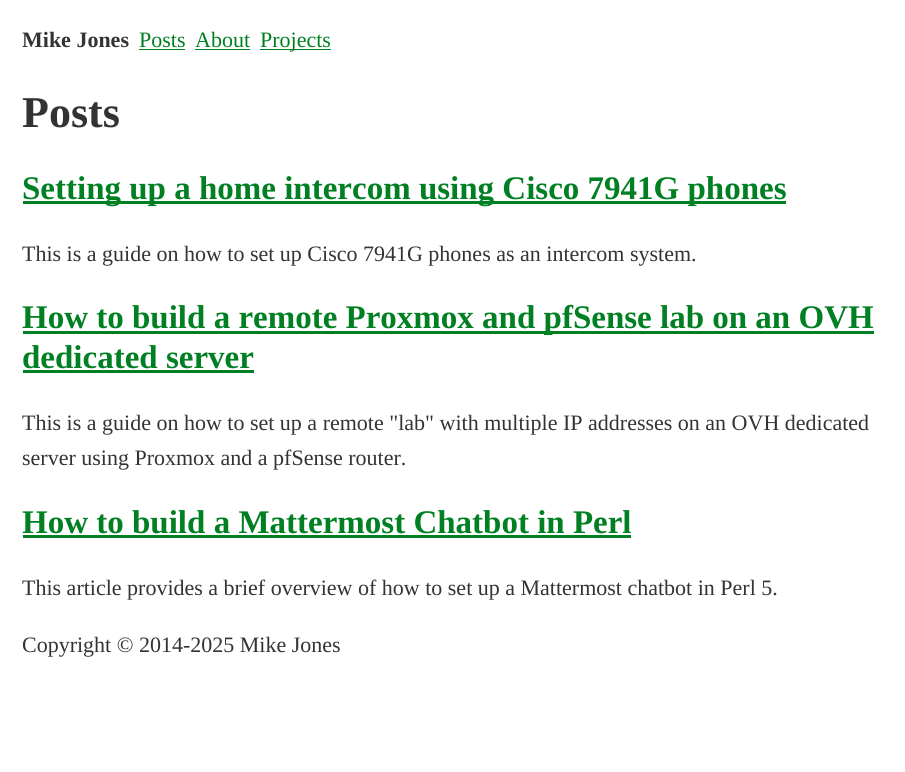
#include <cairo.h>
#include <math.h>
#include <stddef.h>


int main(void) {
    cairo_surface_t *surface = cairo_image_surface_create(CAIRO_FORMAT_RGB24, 905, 772);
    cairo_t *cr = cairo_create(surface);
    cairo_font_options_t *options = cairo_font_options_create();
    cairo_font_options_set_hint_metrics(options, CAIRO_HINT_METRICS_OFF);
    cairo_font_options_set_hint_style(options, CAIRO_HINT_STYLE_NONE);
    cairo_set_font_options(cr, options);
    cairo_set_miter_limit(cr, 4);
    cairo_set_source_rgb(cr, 1, 1, 1);
    cairo_paint(cr);
    cairo_select_font_face(cr, "Liberation Serif", CAIRO_FONT_SLANT_NORMAL, CAIRO_FONT_WEIGHT_BOLD);
    cairo_set_font_size(cr, 22);
    cairo_set_source_rgb(cr, 0.2, 0.2, 0.2);
    cairo_move_to(cr, 22, 47);
    cairo_show_text(cr, "Mike Jones");
    cairo_select_font_face(cr, "Liberation Serif", CAIRO_FONT_SLANT_NORMAL, CAIRO_FONT_WEIGHT_NORMAL);
    cairo_set_source_rgb(cr, 0, 0.502, 0.133);
    cairo_move_to(cr, 139, 47);
    cairo_show_text(cr, "Posts");
    cairo_rectangle(cr, 139, 49, 46, 1);
    cairo_fill(cr);
    cairo_move_to(cr, 195, 47);
    cairo_show_text(cr, "About");
    cairo_rectangle(cr, 195, 49, 55, 1);
    cairo_fill(cr);
    cairo_rectangle(cr, 260, 49, 71, 1);
    cairo_fill(cr);
    cairo_move_to(cr, 260, 47);
    cairo_show_text(cr, "Projects");
    cairo_select_font_face(cr, "Liberation Serif", CAIRO_FONT_SLANT_NORMAL, CAIRO_FONT_WEIGHT_BOLD);
    cairo_set_font_size(cr, 44);
    cairo_set_source_rgb(cr, 0.2, 0.2, 0.2);
    cairo_move_to(cr, 22, 127);
    cairo_show_text(cr, "Posts");
    cairo_set_source_rgb(cr, 0, 0.502, 0.133);
    cairo_rectangle(cr, 23, 201, 763, 3);
    cairo_fill(cr);
    cairo_set_font_size(cr, 33);
    cairo_move_to(cr, 22, 199);
    cairo_show_text(cr, "Setting up a home intercom using Cisco 7941G phones");
    cairo_select_font_face(cr, "Liberation Serif", CAIRO_FONT_SLANT_NORMAL, CAIRO_FONT_WEIGHT_NORMAL);
    cairo_set_font_size(cr, 22);
    cairo_set_source_rgb(cr, 0.2, 0.2, 0.2);
    cairo_move_to(cr, 22, 261);
    cairo_show_text(cr, "This is a guide on how to set up Cisco 7941G phones as an intercom system.");
    cairo_set_source_rgb(cr, 0, 0.502, 0.133);
    cairo_rectangle(cr, 23, 331, 851, 3);
    cairo_fill(cr);
    cairo_select_font_face(cr, "Liberation Serif", CAIRO_FONT_SLANT_NORMAL, CAIRO_FONT_WEIGHT_BOLD);
    cairo_set_font_size(cr, 33);
    cairo_move_to(cr, 22, 328);
    cairo_show_text(cr, "How to build a remote Proxmox and pfSense lab on an OVH");
    cairo_move_to(cr, 22, 368);
    cairo_show_text(cr, "dedicated server");
    cairo_rectangle(cr, 23, 370, 231, 3);
    cairo_fill(cr);
    cairo_select_font_face(cr, "Liberation Serif", CAIRO_FONT_SLANT_NORMAL, CAIRO_FONT_WEIGHT_NORMAL);
    cairo_set_font_size(cr, 22);
    cairo_set_source_rgb(cr, 0.2, 0.2, 0.2);
    cairo_move_to(cr, 22, 430);
    cairo_show_text(cr, "This is a guide on how to set up a remote \"lab\" with multiple IP addresses on an OVH dedicated");
    cairo_move_to(cr, 22, 465);
    cairo_show_text(cr, "server using Proxmox and a pfSense router.");
    cairo_select_font_face(cr, "Liberation Serif", CAIRO_FONT_SLANT_NORMAL, CAIRO_FONT_WEIGHT_BOLD);
    cairo_set_font_size(cr, 33);
    cairo_set_source_rgb(cr, 0, 0.502, 0.133);
    cairo_move_to(cr, 22, 533);
    cairo_show_text(cr, "How to build a Mattermost Chatbot in Perl");
    cairo_rectangle(cr, 23, 535, 608, 3);
    cairo_fill(cr);
    cairo_select_font_face(cr, "Liberation Serif", CAIRO_FONT_SLANT_NORMAL, CAIRO_FONT_WEIGHT_NORMAL);
    cairo_set_font_size(cr, 22);
    cairo_set_source_rgb(cr, 0.2, 0.2, 0.2);
    cairo_move_to(cr, 22, 595);
    cairo_show_text(cr, "This article provides a brief overview of how to set up a Mattermost chatbot in Perl 5.");
    cairo_move_to(cr, 22, 652);
    cairo_show_text(cr, "Copyright © 2014-2025 Mike Jones");
    cairo_surface_write_to_png(surface, "page.png");
    cairo_font_options_destroy(options);
    cairo_destroy(cr);
    cairo_surface_destroy(surface);
    return 0;
}
